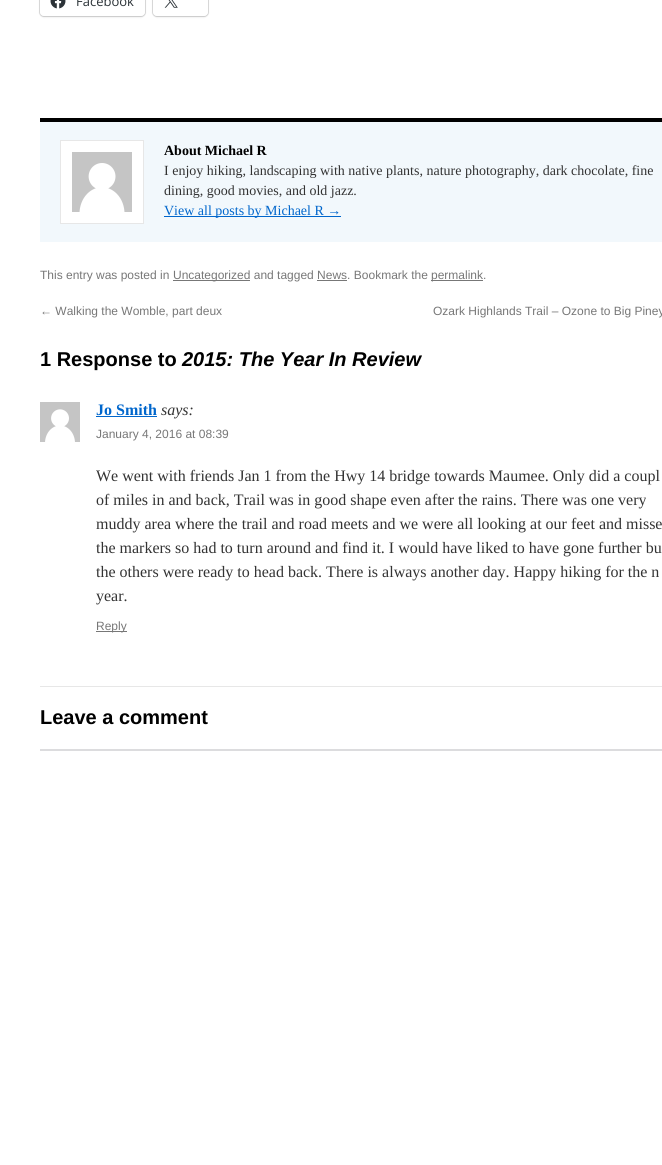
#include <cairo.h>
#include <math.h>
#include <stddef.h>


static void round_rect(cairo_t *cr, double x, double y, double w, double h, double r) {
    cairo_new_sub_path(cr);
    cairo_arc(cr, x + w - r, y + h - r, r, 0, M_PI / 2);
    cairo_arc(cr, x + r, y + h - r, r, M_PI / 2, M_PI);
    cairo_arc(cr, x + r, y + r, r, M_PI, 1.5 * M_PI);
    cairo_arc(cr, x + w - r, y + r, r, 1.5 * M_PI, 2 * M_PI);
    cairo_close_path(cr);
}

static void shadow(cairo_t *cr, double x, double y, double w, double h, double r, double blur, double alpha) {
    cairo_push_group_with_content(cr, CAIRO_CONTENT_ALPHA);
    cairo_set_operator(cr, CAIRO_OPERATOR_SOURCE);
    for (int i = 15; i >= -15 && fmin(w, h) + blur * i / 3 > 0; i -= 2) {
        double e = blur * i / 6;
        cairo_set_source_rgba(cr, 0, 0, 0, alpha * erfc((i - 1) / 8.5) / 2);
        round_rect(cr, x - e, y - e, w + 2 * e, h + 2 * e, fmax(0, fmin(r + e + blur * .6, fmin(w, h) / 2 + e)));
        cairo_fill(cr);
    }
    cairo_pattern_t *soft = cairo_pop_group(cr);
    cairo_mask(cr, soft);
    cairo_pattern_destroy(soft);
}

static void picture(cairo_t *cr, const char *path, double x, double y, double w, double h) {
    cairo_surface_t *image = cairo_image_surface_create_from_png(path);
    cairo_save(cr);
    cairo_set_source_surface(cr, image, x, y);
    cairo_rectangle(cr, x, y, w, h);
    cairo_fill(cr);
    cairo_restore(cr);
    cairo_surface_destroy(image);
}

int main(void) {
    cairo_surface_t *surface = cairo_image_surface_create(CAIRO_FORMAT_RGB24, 662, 1165);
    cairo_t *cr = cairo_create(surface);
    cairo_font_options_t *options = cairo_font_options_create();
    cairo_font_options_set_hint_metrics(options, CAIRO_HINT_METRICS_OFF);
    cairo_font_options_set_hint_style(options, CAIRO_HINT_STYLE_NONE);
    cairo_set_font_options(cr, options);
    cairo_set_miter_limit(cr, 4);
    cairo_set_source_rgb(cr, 1, 1, 1);
    cairo_paint(cr);
    round_rect(cr, 39.5, -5.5, 106, 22, 4.5);
    cairo_set_source_rgb(cr, 0.878, 0.878, 0.878);
    cairo_set_line_width(cr, 1);
    cairo_stroke(cr);
    cairo_set_source_rgb(cr, 0, 0, 0);
    shadow(cr, 40, -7, 105, 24, 4, 1, 0.12);
    cairo_set_source_rgb(cr, 1, 1, 1);
    round_rect(cr, 40, -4, 105, 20, 4);
    cairo_fill(cr);
    picture(cr, "img1.png", 50, 0, 16, 9);
    cairo_select_font_face(cr, "Open Sans", CAIRO_FONT_SLANT_NORMAL, CAIRO_FONT_WEIGHT_NORMAL);
    cairo_set_font_size(cr, 13);
    cairo_set_source_rgb(cr, 0.173, 0.2, 0.22);
    cairo_move_to(cr, 76, 6);
    cairo_show_text(cr, "Facebook");
    round_rect(cr, 152.5, -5.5, 56, 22, 4.5);
    cairo_set_source_rgb(cr, 0.878, 0.878, 0.878);
    cairo_stroke(cr);
    cairo_set_source_rgb(cr, 0, 0, 0);
    shadow(cr, 153, -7, 55, 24, 4, 1, 0.12);
    cairo_set_source_rgb(cr, 1, 1, 1);
    round_rect(cr, 153, -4, 55, 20, 4);
    cairo_fill(cr);
    picture(cr, "img2.png", 164, 0, 14, 8);
    cairo_set_source_rgb(cr, 0.949, 0.969, 0.988);
    cairo_rectangle(cr, 40, 122, 622, 120);
    cairo_fill(cr);
    cairo_set_source_rgb(cr, 0, 0, 0);
    cairo_rectangle(cr, 40, 118, 622, 4);
    cairo_fill(cr);
    cairo_set_source_rgb(cr, 1, 1, 1);
    cairo_rectangle(cr, 60.5, 140.5, 83, 83);
    cairo_fill_preserve(cr);
    cairo_set_source_rgb(cr, 0.906, 0.906, 0.906);
    cairo_stroke(cr);
    picture(cr, "img3.png", 72, 152, 60, 60);
    cairo_select_font_face(cr, "Liberation Serif", CAIRO_FONT_SLANT_NORMAL, CAIRO_FONT_WEIGHT_BOLD);
    cairo_set_font_size(cr, 14);
    cairo_set_source_rgb(cr, 0, 0, 0);
    cairo_move_to(cr, 164, 155);
    cairo_show_text(cr, "About Michael R");
    cairo_select_font_face(cr, "Liberation Serif", CAIRO_FONT_SLANT_NORMAL, CAIRO_FONT_WEIGHT_NORMAL);
    cairo_set_source_rgb(cr, 0.2, 0.2, 0.2);
    cairo_move_to(cr, 164, 175);
    cairo_show_text(cr, "I enjoy hiking, landscaping with native plants, nature photography, dark chocolate, fine");
    cairo_move_to(cr, 164, 195);
    cairo_show_text(cr, "dining, good movies, and old jazz.");
    cairo_set_source_rgb(cr, 0, 0.4, 0.8);
    cairo_rectangle(cr, 164, 216, 177, 1);
    cairo_fill(cr);
    cairo_move_to(cr, 164, 215);
    cairo_show_text(cr, "View all posts by Michael R →");
    cairo_select_font_face(cr, "Liberation Sans", CAIRO_FONT_SLANT_NORMAL, CAIRO_FONT_WEIGHT_NORMAL);
    cairo_set_font_size(cr, 12);
    cairo_set_source_rgb(cr, 0.467, 0.467, 0.467);
    cairo_move_to(cr, 40, 279);
    cairo_show_text(cr, "This entry was posted in");
    cairo_rectangle(cr, 173, 280, 77, 1);
    cairo_fill(cr);
    cairo_move_to(cr, 173, 279);
    cairo_show_text(cr, "Uncategorized and tagged News. Bookmark the");
    cairo_rectangle(cr, 431, 280, 52, 1);
    cairo_fill(cr);
    cairo_move_to(cr, 431, 279);
    cairo_show_text(cr, "permalink.");
    cairo_rectangle(cr, 317, 280, 30, 1);
    cairo_fill(cr);
    cairo_move_to(cr, 40, 315);
    cairo_show_text(cr, "← Walking the Womble, part deux");
    cairo_move_to(cr, 433, 315);
    cairo_show_text(cr, "Ozark Highlands Trail – Ozone to Big Piney");
    cairo_select_font_face(cr, "Liberation Sans", CAIRO_FONT_SLANT_NORMAL, CAIRO_FONT_WEIGHT_BOLD);
    cairo_set_font_size(cr, 20);
    cairo_set_source_rgb(cr, 0, 0, 0);
    cairo_move_to(cr, 40, 366);
    cairo_show_text(cr, "1 Response to");
    cairo_select_font_face(cr, "Liberation Sans", CAIRO_FONT_SLANT_ITALIC, CAIRO_FONT_WEIGHT_BOLD);
    cairo_move_to(cr, 182, 366);
    cairo_show_text(cr, "2015: The Year In Review");
    picture(cr, "img4.png", 40, 402, 40, 40);
    cairo_select_font_face(cr, "Liberation Serif", CAIRO_FONT_SLANT_NORMAL, CAIRO_FONT_WEIGHT_BOLD);
    cairo_set_font_size(cr, 16);
    cairo_set_source_rgb(cr, 0, 0.4, 0.8);
    cairo_move_to(cr, 96, 415);
    cairo_show_text(cr, "Jo Smith");
    cairo_rectangle(cr, 96, 416, 61, 1);
    cairo_fill(cr);
    cairo_select_font_face(cr, "Liberation Serif", CAIRO_FONT_SLANT_ITALIC, CAIRO_FONT_WEIGHT_NORMAL);
    cairo_set_source_rgb(cr, 0.2, 0.2, 0.2);
    cairo_move_to(cr, 161, 415);
    cairo_show_text(cr, "says:");
    cairo_select_font_face(cr, "Liberation Sans", CAIRO_FONT_SLANT_NORMAL, CAIRO_FONT_WEIGHT_NORMAL);
    cairo_set_font_size(cr, 12);
    cairo_set_source_rgb(cr, 0.467, 0.467, 0.467);
    cairo_move_to(cr, 96, 438);
    cairo_show_text(cr, "January 4, 2016 at 08:39");
    cairo_select_font_face(cr, "Liberation Serif", CAIRO_FONT_SLANT_NORMAL, CAIRO_FONT_WEIGHT_NORMAL);
    cairo_set_font_size(cr, 16);
    cairo_set_source_rgb(cr, 0.2, 0.2, 0.2);
    cairo_move_to(cr, 96, 481);
    cairo_show_text(cr, "We went with friends Jan 1 from the Hwy 14 bridge towards Maumee. Only did a coupl");
    cairo_move_to(cr, 96, 505);
    cairo_show_text(cr, "of miles in and back, Trail was in good shape even after the rains. There was one very");
    cairo_move_to(cr, 96, 529);
    cairo_show_text(cr, "muddy area where the trail and road meets and we were all looking at our feet and misse");
    cairo_move_to(cr, 96, 553);
    cairo_show_text(cr, "the markers so had to turn around and find it. I would have liked to have gone further bu");
    cairo_move_to(cr, 96, 577);
    cairo_show_text(cr, "the others were ready to head back. There is always another day. Happy hiking for the n");
    cairo_move_to(cr, 96, 601);
    cairo_show_text(cr, "year.");
    cairo_set_source_rgb(cr, 0.467, 0.467, 0.467);
    cairo_rectangle(cr, 96, 631, 31, 1);
    cairo_fill(cr);
    cairo_select_font_face(cr, "Liberation Sans", CAIRO_FONT_SLANT_NORMAL, CAIRO_FONT_WEIGHT_NORMAL);
    cairo_set_font_size(cr, 12);
    cairo_move_to(cr, 96, 630);
    cairo_show_text(cr, "Reply");
    cairo_set_source_rgb(cr, 0.906, 0.906, 0.906);
    cairo_rectangle(cr, 40, 686, 622, 1);
    cairo_fill(cr);
    cairo_select_font_face(cr, "Liberation Sans", CAIRO_FONT_SLANT_NORMAL, CAIRO_FONT_WEIGHT_BOLD);
    cairo_set_font_size(cr, 20);
    cairo_set_source_rgb(cr, 0, 0, 0);
    cairo_move_to(cr, 40, 724);
    cairo_show_text(cr, "Leave a comment");
    cairo_set_source_rgb(cr, 0.863, 0.863, 0.871);
    cairo_rectangle(cr, 40, 749, 622, 2);
    cairo_fill(cr);
    cairo_surface_write_to_png(surface, "page.png");
    cairo_font_options_destroy(options);
    cairo_destroy(cr);
    cairo_surface_destroy(surface);
    return 0;
}
